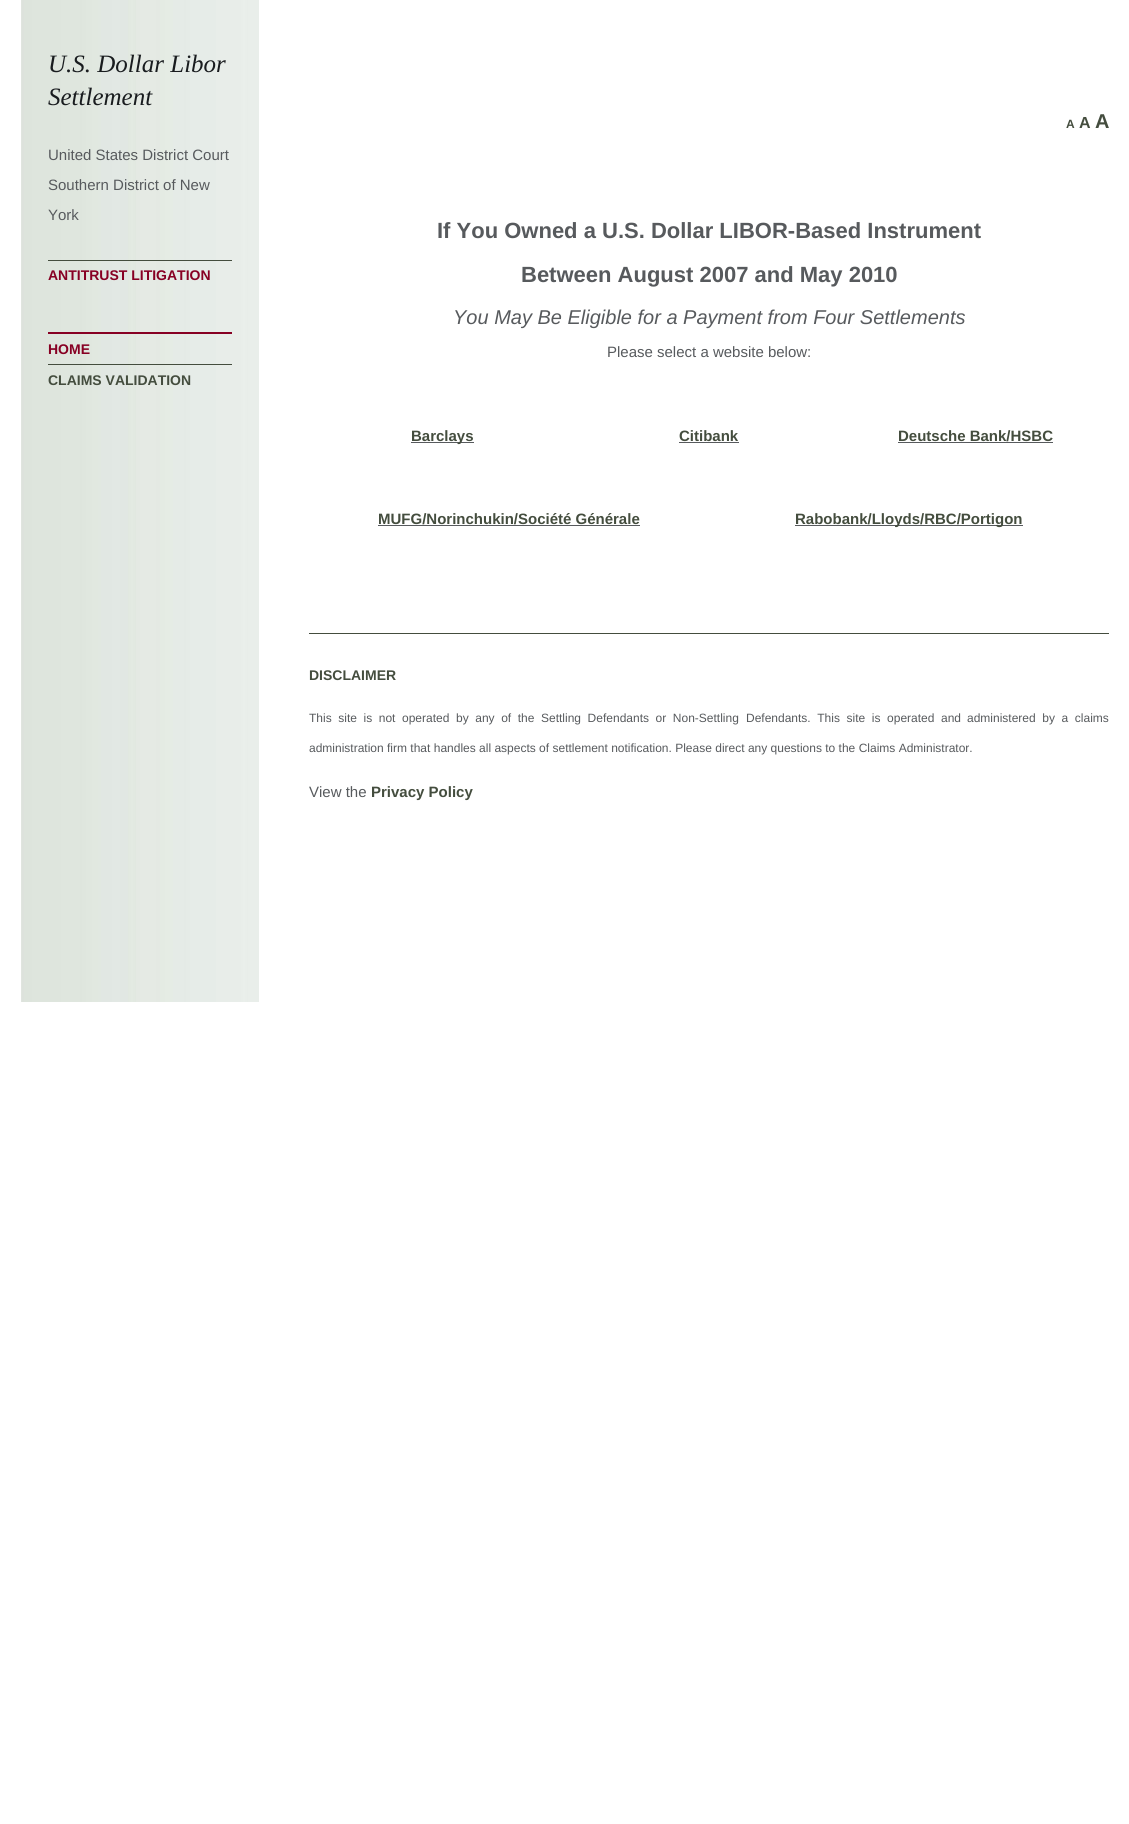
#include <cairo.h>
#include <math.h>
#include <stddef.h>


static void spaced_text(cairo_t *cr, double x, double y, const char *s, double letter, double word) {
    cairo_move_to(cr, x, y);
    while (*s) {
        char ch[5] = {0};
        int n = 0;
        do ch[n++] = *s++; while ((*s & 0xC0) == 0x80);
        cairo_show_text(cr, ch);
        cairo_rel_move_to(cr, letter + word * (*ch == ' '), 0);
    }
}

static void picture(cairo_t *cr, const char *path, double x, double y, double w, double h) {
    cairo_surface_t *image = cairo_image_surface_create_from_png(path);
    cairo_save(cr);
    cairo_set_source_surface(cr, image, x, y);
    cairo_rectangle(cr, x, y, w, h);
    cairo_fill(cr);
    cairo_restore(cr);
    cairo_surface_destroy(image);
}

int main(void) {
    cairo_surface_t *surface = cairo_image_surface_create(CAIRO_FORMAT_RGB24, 1129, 1824);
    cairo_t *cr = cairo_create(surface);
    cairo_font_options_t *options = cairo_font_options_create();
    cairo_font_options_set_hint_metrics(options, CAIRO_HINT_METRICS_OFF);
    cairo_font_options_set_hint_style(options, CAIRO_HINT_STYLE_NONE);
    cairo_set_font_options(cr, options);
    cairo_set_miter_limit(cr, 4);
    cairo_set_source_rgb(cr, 1, 1, 1);
    cairo_paint(cr);
    picture(cr, "img1.png", 21, 0, 238, 1002);
    cairo_select_font_face(cr, "Liberation Serif", CAIRO_FONT_SLANT_ITALIC, CAIRO_FONT_WEIGHT_NORMAL);
    cairo_set_font_size(cr, 25);
    cairo_set_source_rgb(cr, 0.098, 0.11, 0.122);
    cairo_move_to(cr, 48, 72);
    cairo_show_text(cr, "U.S. Dollar Libor");
    cairo_move_to(cr, 48, 105);
    cairo_show_text(cr, "Settlement");
    cairo_select_font_face(cr, "Liberation Sans", CAIRO_FONT_SLANT_NORMAL, CAIRO_FONT_WEIGHT_NORMAL);
    cairo_set_font_size(cr, 15);
    cairo_set_source_rgb(cr, 0.341, 0.353, 0.365);
    cairo_move_to(cr, 48, 160);
    cairo_show_text(cr, "United States District Court");
    cairo_move_to(cr, 48, 190);
    cairo_show_text(cr, "Southern District of New");
    cairo_move_to(cr, 48, 220);
    cairo_show_text(cr, "York");
    cairo_set_source_rgb(cr, 0.267, 0.302, 0.243);
    cairo_rectangle(cr, 48, 260, 184, 1);
    cairo_fill(cr);
    cairo_select_font_face(cr, "Liberation Sans", CAIRO_FONT_SLANT_NORMAL, CAIRO_FONT_WEIGHT_BOLD);
    cairo_set_font_size(cr, 14);
    cairo_set_source_rgb(cr, 0.529, 0, 0.137);
    cairo_move_to(cr, 48, 280);
    cairo_show_text(cr, "ANTITRUST LITIGATION");
    cairo_rectangle(cr, 48, 332, 184, 2);
    cairo_fill(cr);
    cairo_move_to(cr, 48, 354);
    cairo_show_text(cr, "HOME");
    cairo_set_source_rgb(cr, 0.267, 0.302, 0.243);
    cairo_rectangle(cr, 48, 364, 184, 1);
    cairo_fill(cr);
    cairo_move_to(cr, 48, 385);
    cairo_show_text(cr, "CLAIMS VALIDATION");
    cairo_set_font_size(cr, 12);
    cairo_move_to(cr, 1066, 128);
    cairo_show_text(cr, "A");
    cairo_set_font_size(cr, 16);
    cairo_move_to(cr, 1079, 128);
    cairo_show_text(cr, "A");
    cairo_set_font_size(cr, 20);
    cairo_move_to(cr, 1095, 128);
    cairo_show_text(cr, "A");
    cairo_set_font_size(cr, 22);
    cairo_set_source_rgb(cr, 0.341, 0.353, 0.365);
    cairo_move_to(cr, 437, 238);
    cairo_show_text(cr, "If You Owned a U.S. Dollar LIBOR-Based Instrument");
    cairo_move_to(cr, 521, 282);
    cairo_show_text(cr, "Between August 2007 and May 2010");
    cairo_select_font_face(cr, "Liberation Sans", CAIRO_FONT_SLANT_ITALIC, CAIRO_FONT_WEIGHT_NORMAL);
    cairo_set_font_size(cr, 20);
    cairo_move_to(cr, 453, 324);
    cairo_show_text(cr, "You May Be Eligible for a Payment from Four Settlements");
    cairo_select_font_face(cr, "Liberation Sans", CAIRO_FONT_SLANT_NORMAL, CAIRO_FONT_WEIGHT_NORMAL);
    cairo_set_font_size(cr, 15);
    cairo_move_to(cr, 607, 357);
    cairo_show_text(cr, "Please select a website below:");
    cairo_rectangle(cr, 411, 442, 63, 1);
    cairo_fill(cr);
    cairo_select_font_face(cr, "Liberation Sans", CAIRO_FONT_SLANT_NORMAL, CAIRO_FONT_WEIGHT_BOLD);
    cairo_set_source_rgb(cr, 0.267, 0.302, 0.243);
    cairo_move_to(cr, 411, 441);
    cairo_show_text(cr, "Barclays");
    cairo_move_to(cr, 679, 441);
    cairo_show_text(cr, "Citibank");
    cairo_set_source_rgb(cr, 0.341, 0.353, 0.365);
    cairo_rectangle(cr, 679, 442, 60, 1);
    cairo_fill(cr);
    cairo_set_source_rgb(cr, 0.267, 0.302, 0.243);
    cairo_move_to(cr, 898, 441);
    cairo_show_text(cr, "Deutsche Bank/HSBC");
    cairo_set_source_rgb(cr, 0.341, 0.353, 0.365);
    cairo_rectangle(cr, 898, 442, 155, 1);
    cairo_fill(cr);
    cairo_set_source_rgb(cr, 0.267, 0.302, 0.243);
    cairo_move_to(cr, 378, 524);
    cairo_show_text(cr, "MUFG/Norinchukin/Société Générale");
    cairo_set_source_rgb(cr, 0.341, 0.353, 0.365);
    cairo_rectangle(cr, 378, 525, 262, 1);
    cairo_fill(cr);
    cairo_rectangle(cr, 795, 525, 228, 1);
    cairo_fill(cr);
    cairo_set_source_rgb(cr, 0.267, 0.302, 0.243);
    cairo_move_to(cr, 795, 524);
    cairo_show_text(cr, "Rabobank/Lloyds/RBC/Portigon");
    cairo_rectangle(cr, 309, 633, 800, 1);
    cairo_fill(cr);
    cairo_set_font_size(cr, 14);
    cairo_move_to(cr, 309, 680);
    cairo_show_text(cr, "DISCLAIMER");
    cairo_select_font_face(cr, "Liberation Sans", CAIRO_FONT_SLANT_NORMAL, CAIRO_FONT_WEIGHT_NORMAL);
    cairo_set_font_size(cr, 12);
    cairo_set_source_rgb(cr, 0.341, 0.353, 0.365);
    spaced_text(cr, 309, 722, "This site is not operated by any of the", 0, 3.25);
    spaced_text(cr, 541, 722, "Settling Defendants or Non-Settling", 0, 3.25);
    spaced_text(cr, 746, 722, "Defendants. This site is operated and", 0, 3.25);
    spaced_text(cr, 967, 722, "administered by a claims", 0, 3.25);
    cairo_move_to(cr, 309, 752);
    cairo_show_text(cr, "administration firm that handles all aspects of settlement notification. Please direct any questions to the Claims Administrator.");
    cairo_set_font_size(cr, 15);
    cairo_move_to(cr, 309, 797);
    cairo_show_text(cr, "View the");
    cairo_select_font_face(cr, "Liberation Sans", CAIRO_FONT_SLANT_NORMAL, CAIRO_FONT_WEIGHT_BOLD);
    cairo_set_source_rgb(cr, 0.267, 0.302, 0.243);
    cairo_move_to(cr, 371, 797);
    cairo_show_text(cr, "Privacy Policy");
    cairo_surface_write_to_png(surface, "page.png");
    cairo_font_options_destroy(options);
    cairo_destroy(cr);
    cairo_surface_destroy(surface);
    return 0;
}
